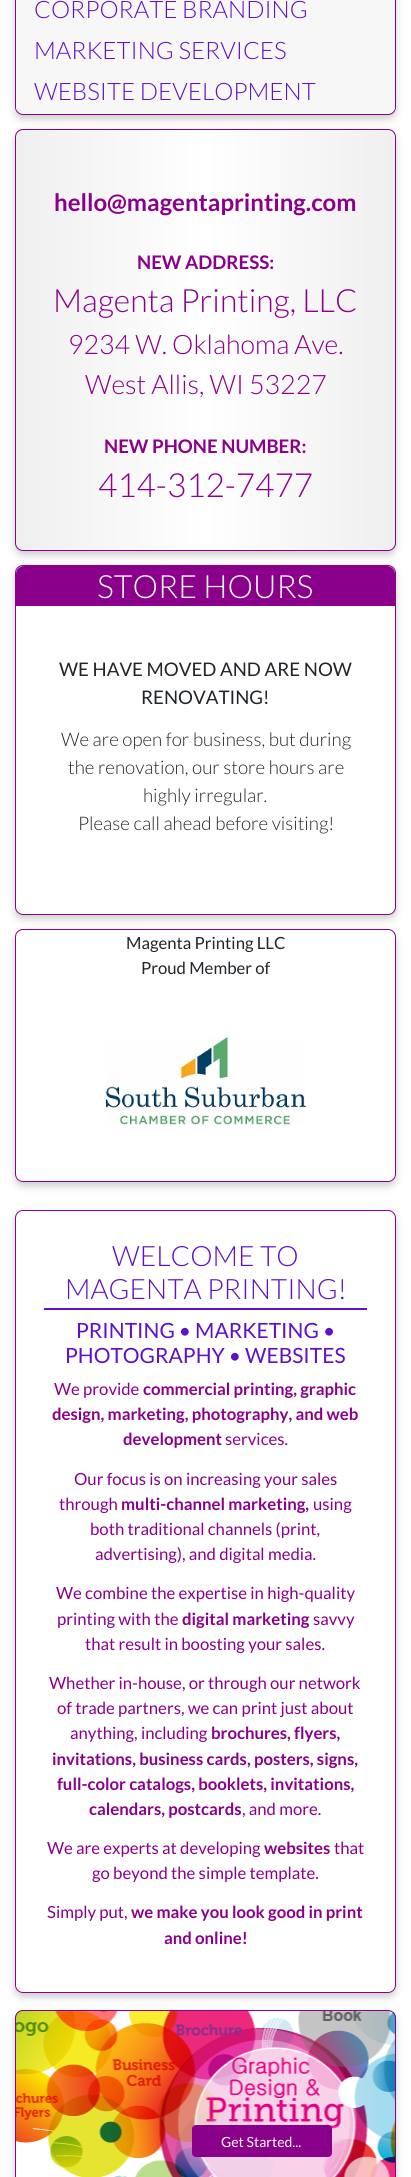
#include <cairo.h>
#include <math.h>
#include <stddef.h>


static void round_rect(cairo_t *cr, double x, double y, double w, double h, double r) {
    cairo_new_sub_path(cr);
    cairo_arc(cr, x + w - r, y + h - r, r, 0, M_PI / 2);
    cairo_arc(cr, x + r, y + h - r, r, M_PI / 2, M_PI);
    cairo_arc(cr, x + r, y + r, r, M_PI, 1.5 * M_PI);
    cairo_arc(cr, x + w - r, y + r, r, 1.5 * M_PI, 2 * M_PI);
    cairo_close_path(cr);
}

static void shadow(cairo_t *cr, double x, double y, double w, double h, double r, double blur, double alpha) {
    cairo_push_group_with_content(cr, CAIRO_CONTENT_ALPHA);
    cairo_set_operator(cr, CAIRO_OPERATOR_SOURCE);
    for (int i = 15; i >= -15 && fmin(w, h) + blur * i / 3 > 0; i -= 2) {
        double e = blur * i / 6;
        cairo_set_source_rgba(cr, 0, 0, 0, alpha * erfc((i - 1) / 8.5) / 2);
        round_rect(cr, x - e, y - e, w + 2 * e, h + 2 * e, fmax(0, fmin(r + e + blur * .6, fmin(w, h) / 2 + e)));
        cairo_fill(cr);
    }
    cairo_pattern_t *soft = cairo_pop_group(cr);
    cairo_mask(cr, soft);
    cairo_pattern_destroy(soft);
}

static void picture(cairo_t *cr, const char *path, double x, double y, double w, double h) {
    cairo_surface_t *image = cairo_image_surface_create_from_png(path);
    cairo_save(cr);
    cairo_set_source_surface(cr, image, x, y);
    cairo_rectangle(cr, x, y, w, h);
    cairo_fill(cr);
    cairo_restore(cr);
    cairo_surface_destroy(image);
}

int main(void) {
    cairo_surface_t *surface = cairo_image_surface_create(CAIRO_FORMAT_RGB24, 411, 2177);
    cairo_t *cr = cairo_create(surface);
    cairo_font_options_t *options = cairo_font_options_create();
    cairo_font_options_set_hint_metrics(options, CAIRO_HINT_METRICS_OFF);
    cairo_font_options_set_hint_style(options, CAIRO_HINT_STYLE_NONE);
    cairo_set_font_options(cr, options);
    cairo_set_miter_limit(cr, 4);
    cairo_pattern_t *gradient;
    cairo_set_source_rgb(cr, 1, 1, 1);
    cairo_paint(cr);
    cairo_set_source_rgb(cr, 0, 0, 0);
    shadow(cr, 15, -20, 381, 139, 8, 4, 0.2);
    cairo_set_source_rgb(cr, 0.965, 0.965, 0.965);
    round_rect(cr, 15.5, -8.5, 380, 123, 7.5);
    cairo_fill_preserve(cr);
    cairo_set_source_rgb(cr, 0.545, 0, 0.545);
    cairo_set_line_width(cr, 1);
    cairo_stroke(cr);
    cairo_select_font_face(cr, "Lato Light", CAIRO_FONT_SLANT_NORMAL, CAIRO_FONT_WEIGHT_NORMAL);
    cairo_set_font_size(cr, 24);
    cairo_set_source_rgb(cr, 0.373, 0.067, 0.78);
    cairo_move_to(cr, 34, 18);
    cairo_show_text(cr, "CORPORATE BRANDING");
    cairo_move_to(cr, 34, 59);
    cairo_show_text(cr, "MARKETING SERVICES");
    cairo_save(cr);
    round_rect(cr, 16, -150, 379, 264, 7);
    cairo_clip(cr);
    cairo_set_source_rgb(cr, 0.965, 0.965, 0.965);
    cairo_rectangle(cr, 16, 72, 379, 38);
    cairo_fill(cr);
    cairo_restore(cr);
    cairo_move_to(cr, 34, 100);
    cairo_show_text(cr, "WEBSITE DEVELOPMENT");
    cairo_set_source_rgb(cr, 0, 0, 0);
    shadow(cr, 15, 133, 381, 422, 8, 4, 0.2);
    cairo_save(cr);
    round_rect(cr, 15, 129, 381, 422, 8);
    cairo_clip(cr);
    gradient = cairo_pattern_create_linear(16, 340, 395, 340);
    cairo_pattern_add_color_stop_rgba(gradient, 0, 0.937, 0.937, 0.937, 1);
    cairo_pattern_add_color_stop_rgba(gradient, 0.5, 1, 1, 1, 1);
    cairo_pattern_add_color_stop_rgba(gradient, 1, 0.937, 0.937, 0.937, 1);
    cairo_set_source(cr, gradient);
    cairo_pattern_destroy(gradient);
    cairo_rectangle(cr, 16, 129, 379, 422);
    cairo_fill(cr);
    cairo_restore(cr);
    round_rect(cr, 15.5, 129.5, 380, 421, 7.5);
    cairo_set_source_rgb(cr, 0.545, 0, 0.545);
    cairo_stroke(cr);
    cairo_select_font_face(cr, "Lato", CAIRO_FONT_SLANT_NORMAL, CAIRO_FONT_WEIGHT_BOLD);
    cairo_move_to(cr, 54, 211);
    cairo_show_text(cr, "hello@magentaprinting.com");
    cairo_set_font_size(cr, 18.7);
    cairo_move_to(cr, 137, 269);
    cairo_show_text(cr, "NEW ADDRESS:");
    cairo_select_font_face(cr, "Lato Light", CAIRO_FONT_SLANT_NORMAL, CAIRO_FONT_WEIGHT_NORMAL);
    cairo_set_font_size(cr, 32);
    cairo_move_to(cr, 53, 312);
    cairo_show_text(cr, "Magenta Printing, LLC");
    cairo_set_font_size(cr, 26.75);
    cairo_move_to(cr, 68, 354);
    cairo_show_text(cr, "9234 W. Oklahoma Ave.");
    cairo_move_to(cr, 85, 394);
    cairo_show_text(cr, "West Allis, WI 53227");
    cairo_select_font_face(cr, "Lato", CAIRO_FONT_SLANT_NORMAL, CAIRO_FONT_WEIGHT_BOLD);
    cairo_set_font_size(cr, 18.7);
    cairo_move_to(cr, 104, 453);
    cairo_show_text(cr, "NEW PHONE NUMBER:");
    cairo_select_font_face(cr, "Lato Light", CAIRO_FONT_SLANT_NORMAL, CAIRO_FONT_WEIGHT_NORMAL);
    cairo_set_font_size(cr, 33.25);
    cairo_move_to(cr, 98, 497);
    cairo_show_text(cr, "414-312-7477");
    cairo_save(cr);
    cairo_set_fill_rule(cr, CAIRO_FILL_RULE_EVEN_ODD);
    cairo_new_path(cr);
    cairo_move_to(cr, 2, 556);
    cairo_line_to(cr, 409, 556);
    cairo_line_to(cr, 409, 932);
    cairo_line_to(cr, 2, 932);
    cairo_close_path(cr);
    cairo_move_to(cr, 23, 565);
    cairo_line_to(cr, 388, 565);
    cairo_curve_to(cr, 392.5, 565, 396, 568.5, 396, 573);
    cairo_line_to(cr, 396, 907);
    cairo_curve_to(cr, 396, 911.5, 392.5, 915, 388, 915);
    cairo_line_to(cr, 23, 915);
    cairo_curve_to(cr, 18.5, 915, 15, 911.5, 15, 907);
    cairo_line_to(cr, 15, 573);
    cairo_curve_to(cr, 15, 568.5, 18.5, 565, 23, 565);
    cairo_close_path(cr);
    cairo_clip(cr);
    cairo_set_source_rgb(cr, 0, 0, 0);
    shadow(cr, 15, 569, 381, 350, 8, 4, 0.2);
    cairo_restore(cr);
    round_rect(cr, 15.5, 565.5, 380, 349, 7.5);
    cairo_stroke(cr);
    cairo_save(cr);
    round_rect(cr, 16, 566, 379, 348, 7);
    cairo_clip(cr);
    cairo_new_path(cr);
    cairo_move_to(cr, 24, 566);
    cairo_line_to(cr, 387, 566);
    cairo_curve_to(cr, 391.5, 566, 395, 569.5, 395, 574);
    cairo_line_to(cr, 395, 606);
    cairo_line_to(cr, 16, 606);
    cairo_line_to(cr, 16, 574);
    cairo_curve_to(cr, 16, 569.5, 19.5, 566, 24, 566);
    cairo_close_path(cr);
    cairo_fill(cr);
    cairo_restore(cr);
    cairo_set_font_size(cr, 32);
    cairo_set_source_rgb(cr, 1, 1, 1);
    cairo_move_to(cr, 97, 598);
    cairo_show_text(cr, "STORE HOURS");
    cairo_select_font_face(cr, "Lato", CAIRO_FONT_SLANT_NORMAL, CAIRO_FONT_WEIGHT_NORMAL);
    cairo_set_font_size(cr, 18.7);
    cairo_set_source_rgb(cr, 0.129, 0.145, 0.161);
    cairo_move_to(cr, 59, 676);
    cairo_show_text(cr, "WE HAVE MOVED AND ARE NOW");
    cairo_move_to(cr, 141, 704);
    cairo_show_text(cr, "RENOVATING!");
    cairo_select_font_face(cr, "Lato Light", CAIRO_FONT_SLANT_NORMAL, CAIRO_FONT_WEIGHT_NORMAL);
    cairo_move_to(cr, 61, 746);
    cairo_show_text(cr, "We are open for business, but during");
    cairo_move_to(cr, 68, 774);
    cairo_show_text(cr, "the renovation, our store hours are");
    cairo_move_to(cr, 143, 802);
    cairo_show_text(cr, "highly irregular.");
    cairo_move_to(cr, 78, 830);
    cairo_show_text(cr, "Please call ahead before visiting!");
    cairo_save(cr);
    cairo_set_fill_rule(cr, CAIRO_FILL_RULE_EVEN_ODD);
    cairo_new_path(cr);
    cairo_move_to(cr, 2, 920);
    cairo_line_to(cr, 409, 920);
    cairo_line_to(cr, 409, 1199);
    cairo_line_to(cr, 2, 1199);
    cairo_close_path(cr);
    cairo_move_to(cr, 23, 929);
    cairo_line_to(cr, 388, 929);
    cairo_curve_to(cr, 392.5, 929, 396, 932.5, 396, 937);
    cairo_line_to(cr, 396, 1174);
    cairo_curve_to(cr, 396, 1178.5, 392.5, 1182, 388, 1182);
    cairo_line_to(cr, 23, 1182);
    cairo_curve_to(cr, 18.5, 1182, 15, 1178.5, 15, 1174);
    cairo_line_to(cr, 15, 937);
    cairo_curve_to(cr, 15, 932.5, 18.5, 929, 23, 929);
    cairo_close_path(cr);
    cairo_clip(cr);
    cairo_set_source_rgb(cr, 0, 0, 0);
    shadow(cr, 15, 933, 381, 253, 8, 4, 0.2);
    cairo_restore(cr);
    round_rect(cr, 15.5, 929.5, 380, 252, 7.5);
    cairo_set_source_rgb(cr, 0.545, 0, 0.545);
    cairo_stroke(cr);
    cairo_select_font_face(cr, "Lato", CAIRO_FONT_SLANT_NORMAL, CAIRO_FONT_WEIGHT_NORMAL);
    cairo_set_font_size(cr, 16.75);
    cairo_set_source_rgb(cr, 0.129, 0.145, 0.161);
    cairo_move_to(cr, 126, 949);
    cairo_show_text(cr, "Magenta Printing LLC");
    cairo_move_to(cr, 141, 974);
    cairo_show_text(cr, "Proud Member of");
    picture(cr, "img1.png", 106, 1037, 200, 88);
    cairo_save(cr);
    cairo_set_fill_rule(cr, CAIRO_FILL_RULE_EVEN_ODD);
    cairo_new_path(cr);
    cairo_move_to(cr, 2, 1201);
    cairo_line_to(cr, 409, 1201);
    cairo_line_to(cr, 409, 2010);
    cairo_line_to(cr, 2, 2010);
    cairo_close_path(cr);
    cairo_move_to(cr, 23, 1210);
    cairo_line_to(cr, 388, 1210);
    cairo_curve_to(cr, 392.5, 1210, 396, 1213.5, 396, 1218);
    cairo_line_to(cr, 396, 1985);
    cairo_curve_to(cr, 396, 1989.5, 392.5, 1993, 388, 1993);
    cairo_line_to(cr, 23, 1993);
    cairo_curve_to(cr, 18.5, 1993, 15, 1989.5, 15, 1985);
    cairo_line_to(cr, 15, 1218);
    cairo_curve_to(cr, 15, 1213.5, 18.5, 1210, 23, 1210);
    cairo_close_path(cr);
    cairo_clip(cr);
    cairo_set_source_rgb(cr, 0, 0, 0);
    shadow(cr, 15, 1214, 381, 783, 8, 4, 0.2);
    cairo_restore(cr);
    round_rect(cr, 15.5, 1210.5, 380, 782, 7.5);
    cairo_set_source_rgb(cr, 0.545, 0, 0.545);
    cairo_stroke(cr);
    cairo_set_source_rgb(cr, 0.373, 0.067, 0.78);
    cairo_rectangle(cr, 44, 1308, 323, 2);
    cairo_fill(cr);
    cairo_select_font_face(cr, "Lato Light", CAIRO_FONT_SLANT_NORMAL, CAIRO_FONT_WEIGHT_NORMAL);
    cairo_set_font_size(cr, 28);
    cairo_move_to(cr, 112, 1266);
    cairo_show_text(cr, "WELCOME TO");
    cairo_move_to(cr, 65, 1299);
    cairo_show_text(cr, "MAGENTA PRINTING!");
    cairo_select_font_face(cr, "Lato", CAIRO_FONT_SLANT_NORMAL, CAIRO_FONT_WEIGHT_NORMAL);
    cairo_set_font_size(cr, 21);
    cairo_move_to(cr, 76, 1338);
    cairo_show_text(cr, "PRINTING • MARKETING •");
    cairo_move_to(cr, 65, 1363);
    cairo_show_text(cr, "PHOTOGRAPHY • WEBSITES");
    cairo_set_font_size(cr, 16.75);
    cairo_set_source_rgb(cr, 0.545, 0, 0.545);
    cairo_move_to(cr, 54, 1395);
    cairo_show_text(cr, "We provide");
    cairo_select_font_face(cr, "Lato", CAIRO_FONT_SLANT_NORMAL, CAIRO_FONT_WEIGHT_BOLD);
    cairo_move_to(cr, 143, 1395);
    cairo_show_text(cr, "commercial printing, graphic");
    cairo_move_to(cr, 52, 1420);
    cairo_show_text(cr, "design, marketing, photography, and web");
    cairo_move_to(cr, 123, 1445);
    cairo_show_text(cr, "development");
    cairo_select_font_face(cr, "Lato", CAIRO_FONT_SLANT_NORMAL, CAIRO_FONT_WEIGHT_NORMAL);
    cairo_move_to(cr, 225, 1445);
    cairo_show_text(cr, "services.");
    cairo_move_to(cr, 74, 1485);
    cairo_show_text(cr, "Our focus is on increasing your sales");
    cairo_move_to(cr, 59, 1510);
    cairo_show_text(cr, "through");
    cairo_select_font_face(cr, "Lato", CAIRO_FONT_SLANT_NORMAL, CAIRO_FONT_WEIGHT_BOLD);
    cairo_move_to(cr, 121, 1510);
    cairo_show_text(cr, "multi-channel marketing,");
    cairo_select_font_face(cr, "Lato", CAIRO_FONT_SLANT_NORMAL, CAIRO_FONT_WEIGHT_NORMAL);
    cairo_move_to(cr, 313, 1510);
    cairo_show_text(cr, "using");
    cairo_move_to(cr, 90, 1535);
    cairo_show_text(cr, "both traditional channels (print,");
    cairo_move_to(cr, 95, 1560);
    cairo_show_text(cr, "advertising), and digital media.");
    cairo_move_to(cr, 56, 1599);
    cairo_show_text(cr, "We combine the expertise in high-quality");
    cairo_move_to(cr, 57, 1625);
    cairo_show_text(cr, "printing with the");
    cairo_select_font_face(cr, "Lato", CAIRO_FONT_SLANT_NORMAL, CAIRO_FONT_WEIGHT_BOLD);
    cairo_move_to(cr, 182, 1625);
    cairo_show_text(cr, "digital marketing");
    cairo_select_font_face(cr, "Lato", CAIRO_FONT_SLANT_NORMAL, CAIRO_FONT_WEIGHT_NORMAL);
    cairo_move_to(cr, 313, 1625);
    cairo_show_text(cr, "savvy");
    cairo_move_to(cr, 85, 1650);
    cairo_show_text(cr, "that result in boosting your sales.");
    cairo_move_to(cr, 49, 1689);
    cairo_show_text(cr, "Whether in-house, or through our network");
    cairo_move_to(cr, 57, 1714);
    cairo_show_text(cr, "of trade partners, we can print just about");
    cairo_move_to(cr, 70, 1739);
    cairo_show_text(cr, "anything, including");
    cairo_select_font_face(cr, "Lato", CAIRO_FONT_SLANT_NORMAL, CAIRO_FONT_WEIGHT_BOLD);
    cairo_move_to(cr, 211, 1739);
    cairo_show_text(cr, "brochures, flyers,");
    cairo_move_to(cr, 52, 1765);
    cairo_show_text(cr, "invitations, business cards, posters, signs,");
    cairo_move_to(cr, 57, 1790);
    cairo_show_text(cr, "full-color catalogs, booklets, invitations,");
    cairo_move_to(cr, 89, 1815);
    cairo_show_text(cr, "calendars, postcards");
    cairo_select_font_face(cr, "Lato", CAIRO_FONT_SLANT_NORMAL, CAIRO_FONT_WEIGHT_NORMAL);
    cairo_move_to(cr, 242, 1815);
    cairo_show_text(cr, ", and more.");
    cairo_move_to(cr, 47, 1854);
    cairo_show_text(cr, "We are experts at developing");
    cairo_select_font_face(cr, "Lato", CAIRO_FONT_SLANT_NORMAL, CAIRO_FONT_WEIGHT_BOLD);
    cairo_move_to(cr, 264, 1854);
    cairo_show_text(cr, "websites");
    cairo_select_font_face(cr, "Lato", CAIRO_FONT_SLANT_NORMAL, CAIRO_FONT_WEIGHT_NORMAL);
    cairo_move_to(cr, 334, 1854);
    cairo_show_text(cr, "that");
    cairo_move_to(cr, 92, 1879);
    cairo_show_text(cr, "go beyond the simple template.");
    cairo_move_to(cr, 47, 1918);
    cairo_show_text(cr, "Simply put,");
    cairo_select_font_face(cr, "Lato", CAIRO_FONT_SLANT_NORMAL, CAIRO_FONT_WEIGHT_BOLD);
    cairo_move_to(cr, 131, 1918);
    cairo_show_text(cr, "we make you look good in print");
    cairo_move_to(cr, 164, 1944);
    cairo_show_text(cr, "and online!");
    cairo_save(cr);
    cairo_set_fill_rule(cr, CAIRO_FILL_RULE_EVEN_ODD);
    cairo_new_path(cr);
    cairo_move_to(cr, 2, 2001);
    cairo_line_to(cr, 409, 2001);
    cairo_line_to(cr, 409, 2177);
    cairo_line_to(cr, 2, 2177);
    cairo_close_path(cr);
    cairo_move_to(cr, 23, 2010);
    cairo_line_to(cr, 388, 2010);
    cairo_curve_to(cr, 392.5, 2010, 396, 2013.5, 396, 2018);
    cairo_line_to(cr, 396, 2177);
    cairo_curve_to(cr, 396, 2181.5, 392.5, 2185, 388, 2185);
    cairo_line_to(cr, 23, 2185);
    cairo_curve_to(cr, 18.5, 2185, 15, 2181.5, 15, 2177);
    cairo_line_to(cr, 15, 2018);
    cairo_curve_to(cr, 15, 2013.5, 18.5, 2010, 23, 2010);
    cairo_close_path(cr);
    cairo_clip(cr);
    cairo_set_source_rgb(cr, 0, 0, 0);
    shadow(cr, 15, 2014, 381, 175, 8, 4, 0.2);
    cairo_restore(cr);
    picture(cr, "img2.png", 15, 2010, 381, 167);
    round_rect(cr, 15.5, 2010.5, 380, 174, 7.5);
    cairo_stroke(cr);
    round_rect(cr, 192, 2125, 140, 32, 4);
    cairo_fill(cr);
    cairo_select_font_face(cr, "Lato", CAIRO_FONT_SLANT_NORMAL, CAIRO_FONT_WEIGHT_NORMAL);
    cairo_set_font_size(cr, 14);
    cairo_set_source_rgb(cr, 1, 1, 1);
    cairo_move_to(cr, 221, 2147);
    cairo_show_text(cr, "Get Started...");
    cairo_surface_write_to_png(surface, "page.png");
    cairo_font_options_destroy(options);
    cairo_destroy(cr);
    cairo_surface_destroy(surface);
    return 0;
}
